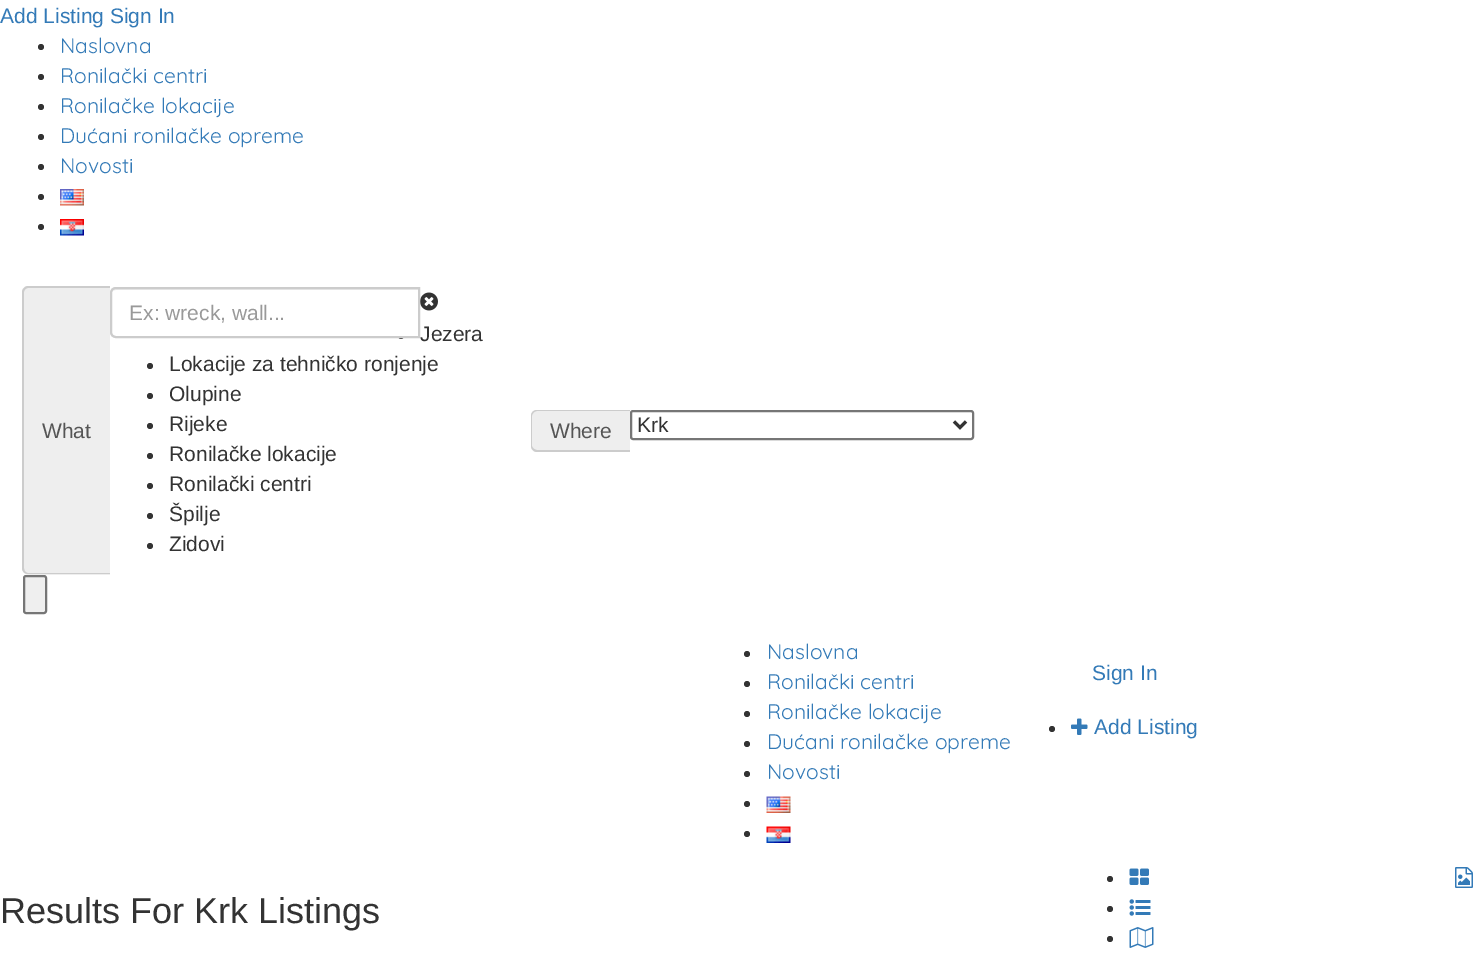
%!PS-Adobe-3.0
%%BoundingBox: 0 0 1473 955
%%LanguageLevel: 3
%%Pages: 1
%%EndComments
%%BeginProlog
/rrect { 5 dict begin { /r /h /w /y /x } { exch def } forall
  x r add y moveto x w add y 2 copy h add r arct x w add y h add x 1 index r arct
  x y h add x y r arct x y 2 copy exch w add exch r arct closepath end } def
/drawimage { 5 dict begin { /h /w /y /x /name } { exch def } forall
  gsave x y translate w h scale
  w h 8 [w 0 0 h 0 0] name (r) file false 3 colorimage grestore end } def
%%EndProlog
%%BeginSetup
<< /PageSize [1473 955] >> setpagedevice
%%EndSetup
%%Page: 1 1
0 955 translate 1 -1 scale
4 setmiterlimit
1 setgray
0 0 1473 955 rectfill
0.2 setgray
newpath 41 47 3 0 360 arc closepath fill
newpath 41 77 3 0 360 arc closepath fill
newpath 41 107 3 0 360 arc closepath fill
newpath 41 137 3 0 360 arc closepath fill
newpath 41 167 3 0 360 arc closepath fill
newpath 41 197 3 0 360 arc closepath fill
(images/1.raw) 60 189 24 17 drawimage
newpath 41 227 3 0 360 arc closepath fill
(images/2.raw) 60 219 24 17 drawimage
0.933 setgray
newpath 29 287 moveto 110 287 lineto 110 575 lineto 29 575 lineto 25.5 575 23 572.5 23 569 curveto 23 293 lineto 23 289.5 25.5 287 29 287 curveto closepath fill
0.8 setgray
newpath 28 286 moveto 110 286 lineto 110 574 lineto 28 574 lineto 25 574 22 572 22 568 curveto 22 292 lineto 22 289 25 286 28 286 curveto closepath 28 288 moveto 110 288 lineto 110 573 lineto 28 573 lineto 26 573 24 571 24 568 curveto 24 292 lineto 24 290 26 288 28 288 curveto closepath eofill
(images/3.raw) 420 292 18 19 drawimage
0.2 setgray
newpath 401 336 3 0 360 arc closepath fill
newpath 150 366 3 0 360 arc closepath fill
newpath 150 396 3 0 360 arc closepath fill
newpath 150 426 3 0 360 arc closepath fill
newpath 150 456 3 0 360 arc closepath fill
newpath 150 486 3 0 360 arc closepath fill
newpath 150 516 3 0 360 arc closepath fill
newpath 150 546 3 0 360 arc closepath fill
0.933 setgray
newpath 537 410 moveto 630 410 lineto 630 452 lineto 537 452 lineto 533.5 452 531 449.5 531 446 curveto 531 416 lineto 531 412.5 533.5 410 537 410 curveto closepath fill
0.8 setgray
newpath 537 410 moveto 630 410 lineto 630 452 lineto 537 452 lineto 534 452 531 449 531 446 curveto 531 416 lineto 531 412 534 410 537 410 curveto closepath 537 411 moveto 630 411 lineto 630 450 lineto 537 450 lineto 535 450 532 448 532 446 curveto 532 416 lineto 532 413 535 411 537 411 curveto closepath eofill
0.463 setgray
2 setlinewidth
631 411 342 28 2 rrect stroke
0.2 setgray
3 setlinewidth
newpath 954 421.5 moveto 960 427.5 lineto 966 421.5 lineto stroke
0.937 setgray
24 576 22 37 2 rrect gsave fill grestore
0.463 setgray
2 setlinewidth
stroke
0.2 setgray
newpath 747 654 3 0 360 arc closepath fill
newpath 747 684 3 0 360 arc closepath fill
newpath 747 714 3 0 360 arc closepath fill
newpath 747 744 3 0 360 arc closepath fill
newpath 747 774 3 0 360 arc closepath fill
newpath 747 804 3 0 360 arc closepath fill
(images/4.raw) 766 796 25 17 drawimage
newpath 747 834 3 0 360 arc closepath fill
(images/5.raw) 766 826 25 17 drawimage
newpath 1052 729 3 0 360 arc closepath fill
(images/6.raw) 1071 718 17 17 drawimage
(images/7.raw) 1455 867 18 21 drawimage
newpath 1110 879 3 0 360 arc closepath fill
(images/8.raw) 1129 868 20 17 drawimage
newpath 1110 909 3 0 360 arc closepath fill
(images/9.raw) 1129 899 22 17 drawimage
newpath 1110 939 3 0 360 arc closepath fill
(images/10.raw) 1129 927 25 21 drawimage
/LiberationSans-Regular [21 0 0 -21 0 0] selectfont
0.2 0.478 0.718 setrgbcolor
0 23 moveto (Add Listing Sign In) show
/Quicksand-Regular [21 0 0 -21 0 0] selectfont
60 53 moveto (Naslovna) show
60 83 moveto (Ronilački centri) show
60 113 moveto (Ronilačke lokacije) show
60 143 moveto (Dućani ronilačke opreme) show
60 173 moveto (Novosti) show
/LiberationSans-Regular [21 0 0 -21 0 0] selectfont
0.333 setgray
42 438 moveto (What) show
0.2 setgray
420 341 moveto (Jezera) show
1 setgray
newpath 116 287 moveto 420 287 lineto 420 338 lineto 116 338 lineto 112.5 338 110 335.5 110 332 curveto 110 293 lineto 110 289.5 112.5 287 116 287 curveto closepath fill
0.925 setgray
newpath 116 290 moveto 418 290 lineto 418 336 lineto 419 336 lineto 419 288 lineto 116 288 lineto 113 288 111 291 111 294 curveto 111 292 113 290 116 290 curveto closepath fill
0.8 setgray
newpath 116 288 moveto 419 288 lineto 419 337 lineto 116 337 lineto 113 337 111 335 111 332 curveto 111 293 lineto 111 290 113 288 116 288 curveto closepath stroke
0.6 setgray
129 320 moveto (Ex: wreck, wall...) show
0.2 setgray
169 371 moveto (Lokacije za tehničko ronjenje) show
169 401 moveto (Olupine) show
169 431 moveto (Rijeke) show
169 461 moveto (Ronilačke lokacije) show
169 491 moveto (Ronilački centri) show
169 521 moveto (Špilje) show
169 551 moveto (Zidovi) show
0.333 setgray
550 438 moveto (Where) show
0.2 setgray
637 432 moveto (Krk) show
/Quicksand-Regular [21 0 0 -21 0 0] selectfont
0.2 0.478 0.718 setrgbcolor
767 659 moveto (Naslovna) show
767 689 moveto (Ronilački centri) show
767 719 moveto (Ronilačke lokacije) show
767 749 moveto (Dućani ronilačke opreme) show
767 779 moveto (Novosti) show
/LiberationSans-Regular [21 0 0 -21 0 0] selectfont
1092 680 moveto (Sign In) show
1094 734 moveto (Add Listing) show
/LiberationSans-Regular [36 0 0 -36 0 0] selectfont
0.2 setgray
0 923 moveto (Results For Krk Listings) show
showpage
%%EOF
